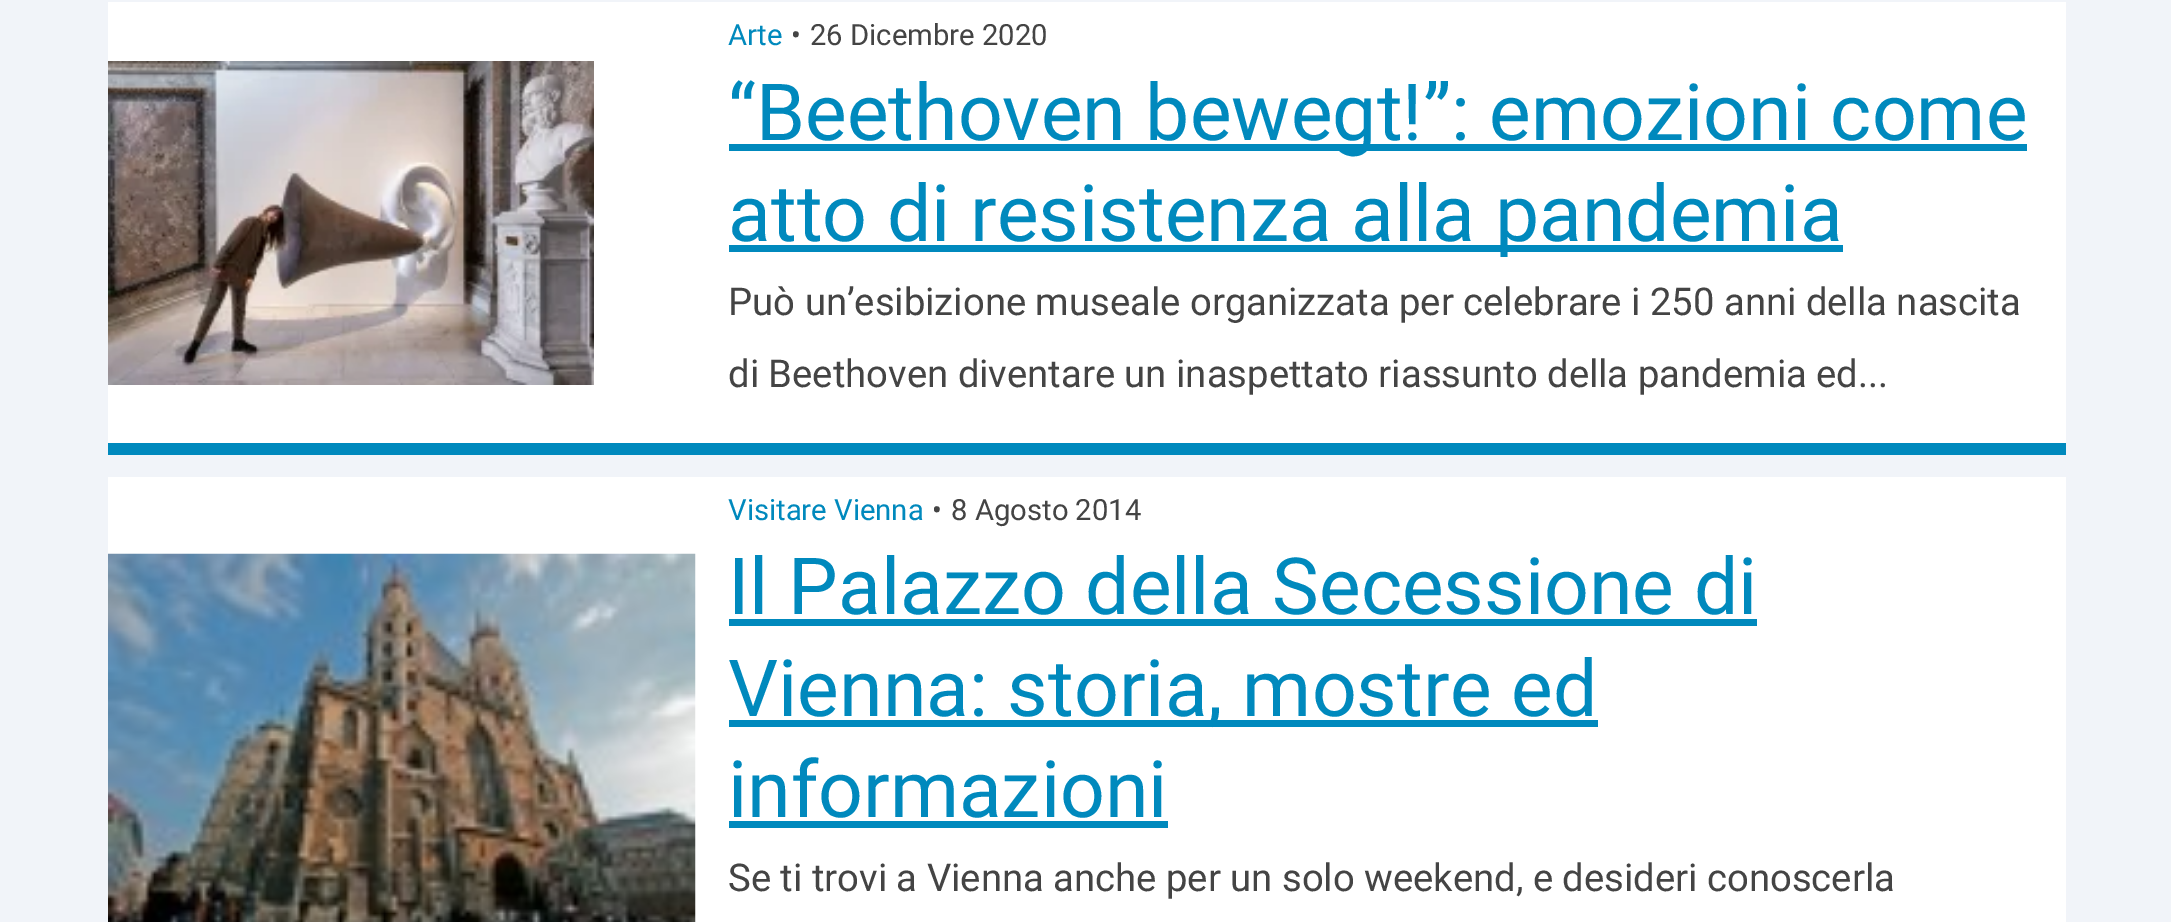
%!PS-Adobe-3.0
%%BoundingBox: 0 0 2171 922
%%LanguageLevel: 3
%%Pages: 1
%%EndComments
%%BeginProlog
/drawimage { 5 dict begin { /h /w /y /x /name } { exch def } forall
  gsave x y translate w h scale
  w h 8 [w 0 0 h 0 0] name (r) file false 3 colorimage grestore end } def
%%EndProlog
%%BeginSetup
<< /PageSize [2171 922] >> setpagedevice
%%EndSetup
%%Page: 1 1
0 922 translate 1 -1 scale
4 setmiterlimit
0.945 0.957 0.976 setrgbcolor
0 0 2171 922 rectfill
1 setgray
108 2 1958 441 rectfill
0 0.537 0.741 setrgbcolor
108 443 1958 12 rectfill
(images/1.raw) 108 61 486 324 drawimage
729 144 1298 7 rectfill
729 245 1114 7 rectfill
1 setgray
108 477 1958 445 rectfill
(images/2.raw) 108 553 588 369 drawimage
0 0.537 0.741 setrgbcolor
729 619 1028 7 rectfill
729 720 869 7 rectfill
729 821 439 7 rectfill
/Roboto-Regular [29.25 0 0 -29.25 0 0] selectfont
728 45 moveto (Arte) show
0.267 setgray
791 45 moveto (•) show
810 45 moveto (26 Dicembre 2020) show
/Roboto-Regular [78.75 0 0 -78.75 0 0] selectfont
0 0.537 0.741 setrgbcolor
728 140 moveto (“Beethoven bewegt!”: emozioni come) show
728 241 moveto (atto di resistenza alla pandemia) show
/Roboto-Regular [38.25 0 0 -38.25 0 0] selectfont
0.267 setgray
728 315 moveto (Può un’esibizione museale organizzata per celebrare i 250 anni della nascita) show
728 387 moveto (di Beethoven diventare un inaspettato riassunto della pandemia ed...) show
/Roboto-Regular [29.25 0 0 -29.25 0 0] selectfont
0 0.537 0.741 setrgbcolor
728 520 moveto (Visitare Vienna) show
0.267 setgray
932 520 moveto (•) show
951 520 moveto (8 Agosto 2014) show
/Roboto-Regular [78.75 0 0 -78.75 0 0] selectfont
0 0.537 0.741 setrgbcolor
728 614 moveto (Il Palazzo della Secessione di) show
728 716 moveto (Vienna: storia, mostre ed) show
728 817 moveto (informazioni) show
/Roboto-Regular [38.25 0 0 -38.25 0 0] selectfont
0.267 setgray
728 891 moveto (Se ti trovi a Vienna anche per un solo weekend, e desideri conoscerla) show
showpage
%%EOF
